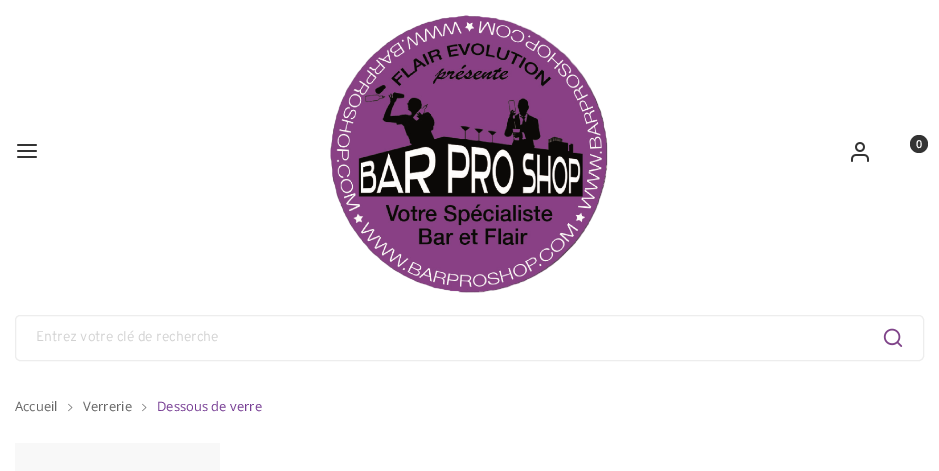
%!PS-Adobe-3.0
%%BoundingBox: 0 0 939 471
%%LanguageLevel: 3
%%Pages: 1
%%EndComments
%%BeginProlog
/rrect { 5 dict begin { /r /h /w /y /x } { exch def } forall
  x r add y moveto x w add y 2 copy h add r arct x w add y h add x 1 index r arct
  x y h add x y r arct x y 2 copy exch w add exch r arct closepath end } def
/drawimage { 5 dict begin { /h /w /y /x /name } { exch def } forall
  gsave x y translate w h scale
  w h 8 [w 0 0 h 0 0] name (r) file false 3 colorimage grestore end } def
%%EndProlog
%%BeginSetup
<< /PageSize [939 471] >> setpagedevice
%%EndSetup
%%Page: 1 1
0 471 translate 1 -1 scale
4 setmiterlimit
1 setgray
0 0 939 471 rectfill
(images/1.raw) 17 144 20 14 drawimage
(images/2.raw) 330 15 278 278 drawimage
(images/3.raw) 851 142 18 20 drawimage
0.2 setgray
newpath 919 144 9 0 360 arc closepath fill
0.929 setgray
15.5 315.5 908 45 4.5 rrect stroke
(images/4.raw) 883 328 20 19 drawimage
(images/5.raw) 68 403 5 9 drawimage
(images/5.raw) 142 403 5 9 drawimage
0.973 setgray
15 443 205 28 rectfill
/OpenSans-SemiBold [11 0 0 -11 0 0] selectfont
1 setgray
916 148 moveto (0) show
/Overpass-Light [14 0 0 -14 0 0] selectfont
0.82 setgray
36 341 moveto (Entrez votre clé de recherche) show
/OpenSans-Regular [13 0 0 -13 0 0] selectfont
0.4 setgray
15 411 moveto (Accueil) show
83 411 moveto (Verrerie) show
0.467 0.243 0.58 setrgbcolor
157 411 moveto (Dessous de verre) show
showpage
%%EOF
